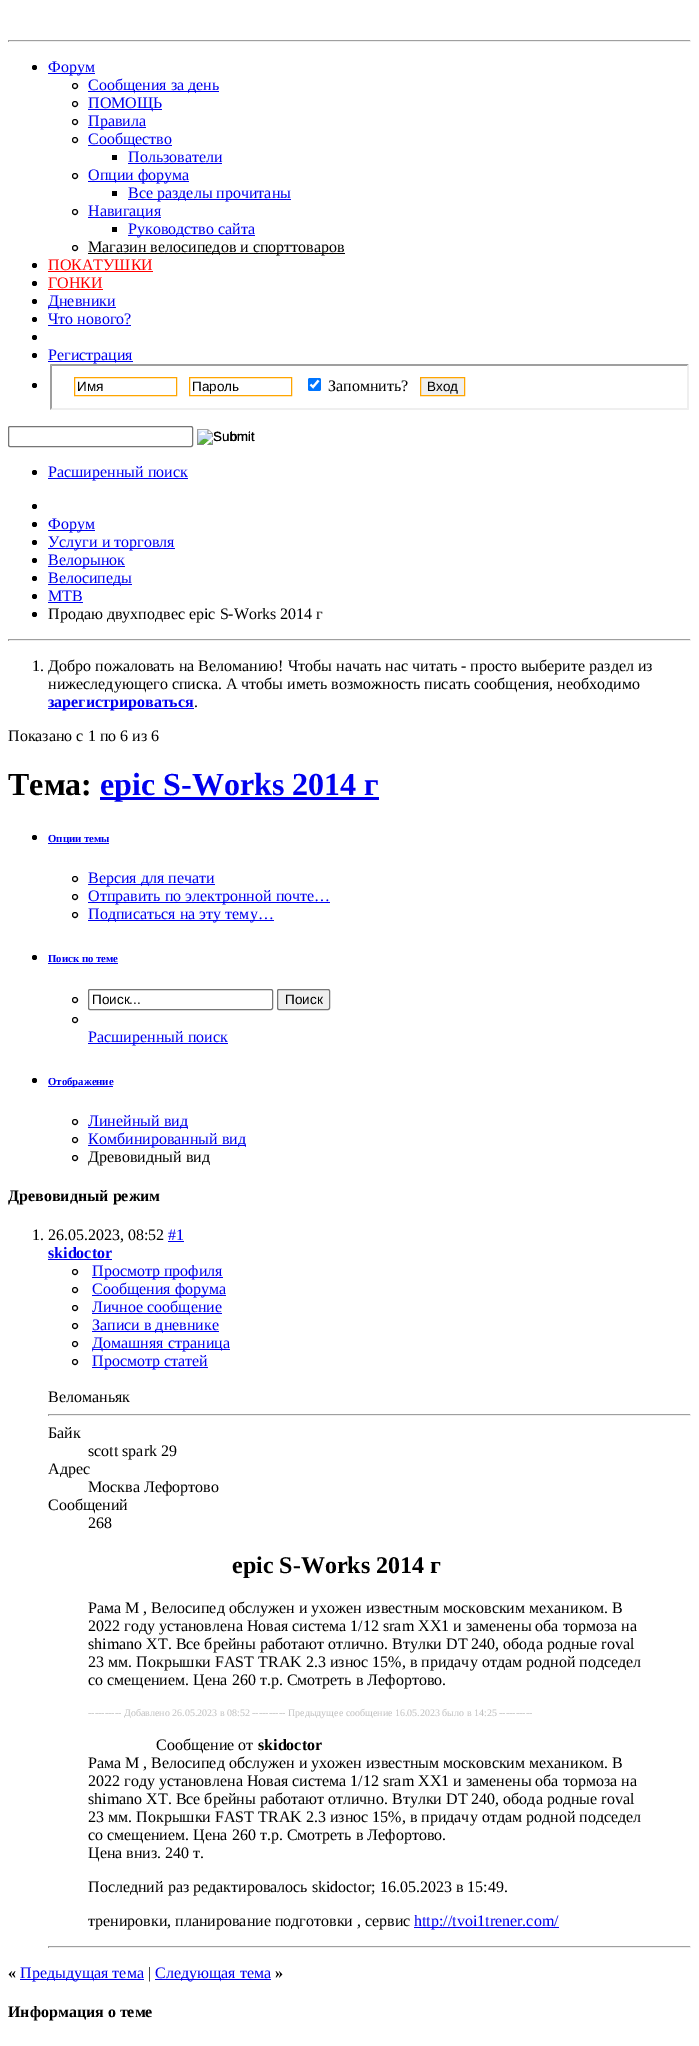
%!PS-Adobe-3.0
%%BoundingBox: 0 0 699 2046
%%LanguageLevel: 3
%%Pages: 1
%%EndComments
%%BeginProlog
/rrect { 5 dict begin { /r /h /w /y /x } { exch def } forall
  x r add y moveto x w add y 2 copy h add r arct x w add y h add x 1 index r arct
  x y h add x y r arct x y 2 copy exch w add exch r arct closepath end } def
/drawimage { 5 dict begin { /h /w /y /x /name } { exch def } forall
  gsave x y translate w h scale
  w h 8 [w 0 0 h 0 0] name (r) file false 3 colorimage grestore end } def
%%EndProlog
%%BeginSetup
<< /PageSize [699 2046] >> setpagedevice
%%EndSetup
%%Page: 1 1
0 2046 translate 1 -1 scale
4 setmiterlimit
1 setgray
0 0 699 2046 rectfill
0.624 setgray
8 40 683 1 rectfill
0.933 setgray
690 40 1 2 rectfill
8 41 683 1 rectfill
0.624 setgray
8 40 1 2 rectfill
0 setgray
newpath 34.5 67.5 2.5 0 360 arc closepath fill
0 0 0.933 setrgbcolor
48 73 47 1 rectfill
0 setgray
newpath 75 86 2.5 0 360 arc closepath stroke
0 0 0.933 setrgbcolor
88 91 131 1 rectfill
0 setgray
newpath 75 104 2.5 0 360 arc closepath stroke
0 0 0.933 setrgbcolor
88 109 74 1 rectfill
0 setgray
newpath 75 122 2.5 0 360 arc closepath stroke
0 0 0.933 setrgbcolor
88 127 58 1 rectfill
0 setgray
newpath 75 140 2.5 0 360 arc closepath stroke
0 0 0.933 setrgbcolor
88 145 84 1 rectfill
0 setgray
112 155 5 5 rectfill
0 0 0.933 setrgbcolor
128 163 94 1 rectfill
0 setgray
newpath 75 176 2.5 0 360 arc closepath stroke
0 0 0.933 setrgbcolor
88 181 101 1 rectfill
0 setgray
112 191 5 5 rectfill
0 0 0.933 setrgbcolor
128 199 163 1 rectfill
0 setgray
newpath 75 212 2.5 0 360 arc closepath stroke
0 0 0.933 setrgbcolor
88 217 73 1 rectfill
0 setgray
112 227 5 5 rectfill
0 0 0.933 setrgbcolor
128 235 127 1 rectfill
0 setgray
newpath 75 248 2.5 0 360 arc closepath stroke
88 253 257 1 rectfill
newpath 34.5 265.5 2.5 0 360 arc closepath fill
1 0 0 setrgbcolor
48 271 105 1 rectfill
0 setgray
newpath 34.5 283.5 2.5 0 360 arc closepath fill
1 0 0 setrgbcolor
48 289 55 1 rectfill
0 setgray
newpath 34.5 301.5 2.5 0 360 arc closepath fill
0 0 0.933 setrgbcolor
48 307 68 1 rectfill
0 setgray
newpath 34.5 319.5 2.5 0 360 arc closepath fill
0 0 0.933 setrgbcolor
48 325 83 1 rectfill
0 setgray
newpath 34.5 337.5 2.5 0 360 arc closepath fill
newpath 34.5 355.5 2.5 0 360 arc closepath fill
0 0 0.933 setrgbcolor
48 361 85 1 rectfill
0 setgray
newpath 34.5 385.5 2.5 0 360 arc closepath fill
0.624 setgray
newpath 50 364 moveto 689 364 lineto 687 366 lineto 52 366 lineto closepath fill
0.937 setgray
newpath 689 364 moveto 689 410 lineto 687 408 lineto 687 366 lineto closepath fill
newpath 689 410 moveto 50 410 lineto 52 408 lineto 687 408 lineto closepath fill
0.624 setgray
newpath 50 410 moveto 50 364 lineto 52 366 lineto 52 408 lineto closepath fill
1 0.647 0 setrgbcolor
74.5 377.5 102 18 rectstroke
189.5 377.5 102 18 rectstroke
0 0.459 1 setrgbcolor
308 378 13 13 2 rrect fill
1 setgray
2.1 setlinewidth
newpath 310.5 384.5 moveto 313 387 lineto 318.5 380.5 lineto stroke
0.937 setgray
newpath 420.5 377.5 moveto 464.5 377.5 lineto 464.5 395.5 lineto 420.5 395.5 lineto closepath gsave fill grestore
1 0.647 0 setrgbcolor
1 setlinewidth
stroke
0.463 setgray
8.5 426.5 184 20 1.5 rrect stroke
(images/1.raw) 197 429 57 16 drawimage
0 setgray
newpath 34.5 472.5 2.5 0 360 arc closepath fill
0 0 0.933 setrgbcolor
48 478 140 1 rectfill
0 setgray
newpath 34.5 506.5 2.5 0 360 arc closepath fill
newpath 34.5 524.5 2.5 0 360 arc closepath fill
0 0 0.933 setrgbcolor
48 530 47 1 rectfill
0 setgray
newpath 34.5 542.5 2.5 0 360 arc closepath fill
0 0 0.933 setrgbcolor
48 548 127 1 rectfill
0 setgray
newpath 34.5 560.5 2.5 0 360 arc closepath fill
0 0 0.933 setrgbcolor
48 566 77 1 rectfill
0 setgray
newpath 34.5 578.5 2.5 0 360 arc closepath fill
0 0 0.933 setrgbcolor
48 584 84 1 rectfill
0 setgray
newpath 34.5 596.5 2.5 0 360 arc closepath fill
0 0 0.933 setrgbcolor
48 602 35 1 rectfill
0 setgray
newpath 34.5 614.5 2.5 0 360 arc closepath fill
0.624 setgray
8 639 683 1 rectfill
0.933 setgray
690 639 1 2 rectfill
8 640 683 1 rectfill
0.624 setgray
8 639 1 2 rectfill
0 0 0.933 setrgbcolor
48 708 146 1 rectfill
100 797 279 3 rectfill
0 setgray
newpath 34.5 837.5 2.5 0 360 arc closepath fill
0 0 0.933 setrgbcolor
48 843 61 1 rectfill
0 setgray
newpath 75 879 2.5 0 360 arc closepath stroke
0 0 0.933 setrgbcolor
88 884 127 1 rectfill
0 setgray
newpath 75 897 2.5 0 360 arc closepath stroke
0 0 0.933 setrgbcolor
88 902 242 1 rectfill
0 setgray
newpath 75 915 2.5 0 360 arc closepath stroke
0 0 0.933 setrgbcolor
88 920 186 1 rectfill
0 setgray
newpath 34.5 957.5 2.5 0 360 arc closepath fill
0 0 0.933 setrgbcolor
48 963 70 1 rectfill
0 setgray
newpath 75 1000 2.5 0 360 arc closepath stroke
0.463 setgray
88.5 989.5 184 20 1.5 rrect stroke
0.937 setgray
277.5 989.5 52 20 1.5 rrect gsave fill grestore
0.463 setgray
stroke
0 setgray
newpath 75 1020 2.5 0 360 arc closepath stroke
0 0 0.933 setrgbcolor
88 1043 140 1 rectfill
0 setgray
newpath 34.5 1080.5 2.5 0 360 arc closepath fill
0 0 0.933 setrgbcolor
48 1086 65 1 rectfill
0 setgray
newpath 75 1122 2.5 0 360 arc closepath stroke
0 0 0.933 setrgbcolor
88 1127 100 1 rectfill
0 setgray
newpath 75 1140 2.5 0 360 arc closepath stroke
0 0 0.933 setrgbcolor
88 1145 158 1 rectfill
0 setgray
newpath 75 1158 2.5 0 360 arc closepath stroke
0 0 0.933 setrgbcolor
168 1241 16 1 rectfill
48 1259 64 1 rectfill
0 setgray
newpath 75 1272 2.5 0 360 arc closepath stroke
0 0 0.933 setrgbcolor
92 1277 131 1 rectfill
0 setgray
newpath 75 1290 2.5 0 360 arc closepath stroke
0 0 0.933 setrgbcolor
92 1295 134 1 rectfill
0 setgray
newpath 75 1308 2.5 0 360 arc closepath stroke
0 0 0.933 setrgbcolor
92 1313 130 1 rectfill
0 setgray
newpath 75 1326 2.5 0 360 arc closepath stroke
0 0 0.933 setrgbcolor
92 1331 127 1 rectfill
0 setgray
newpath 75 1344 2.5 0 360 arc closepath stroke
0 0 0.933 setrgbcolor
92 1349 138 1 rectfill
0 setgray
newpath 75 1362 2.5 0 360 arc closepath stroke
0 0 0.933 setrgbcolor
92 1367 116 1 rectfill
0.624 setgray
48 1414 643 1 rectfill
0.933 setgray
690 1414 1 2 rectfill
48 1415 643 1 rectfill
0.624 setgray
48 1414 1 2 rectfill
0 0 0.933 setrgbcolor
414 1927 145 1 rectfill
0.624 setgray
48 1946 643 1 rectfill
0.933 setgray
690 1946 1 2 rectfill
48 1947 643 1 rectfill
0.624 setgray
48 1946 1 2 rectfill
0 0 0.933 setrgbcolor
20 1979 124 1 rectfill
155 1979 116 1 rectfill
/LiberationSerif-Regular [16 0 0 -16 0 0] selectfont
48 72 moveto (Форум) show
88 90 moveto (Сообщения за день) show
88 108 moveto (ПОМОЩЬ) show
88 126 moveto (Правила) show
88 144 moveto (Сообщество) show
128 162 moveto (Пользователи) show
88 180 moveto (Опции форума) show
128 198 moveto (Все разделы прочитаны) show
88 216 moveto (Навигация) show
128 234 moveto (Руководство сайта) show
0 setgray
88 252 moveto (Магазин велосипедов и спорттоваров) show
1 0 0 setrgbcolor
48 270 moveto (ПОКАТУШКИ) show
48 288 moveto (ГОНКИ) show
0 0 0.933 setrgbcolor
48 306 moveto (Дневники) show
48 324 moveto (Что нового?) show
48 360 moveto (Регистрация) show
/LiberationSans-Regular [13.5 0 0 -13.5 0 0] selectfont
0 setgray
77 391 moveto (Имя) show
192 391 moveto (Пароль) show
/LiberationSerif-Regular [16 0 0 -16 0 0] selectfont
328 391 moveto (Запомнить?) show
/LiberationSans-Regular [13.5 0 0 -13.5 0 0] selectfont
427 391 moveto (Вход) show
213 441 moveto (Submit) show
/LiberationSerif-Regular [16 0 0 -16 0 0] selectfont
0 0 0.933 setrgbcolor
48 477 moveto (Расширенный поиск) show
48 529 moveto (Форум) show
48 547 moveto (Услуги и торговля) show
48 565 moveto (Велорынок) show
48 583 moveto (Велосипеды) show
48 601 moveto (MTB) show
0 setgray
48 619 moveto (Продаю двухподвес epic S-Works 2014 г) show
32 671 moveto (1. Добро пожаловать на Веломанию! Чтобы начать нас читать - просто выберите раздел из) show
48 689 moveto (нижеследующего списка. A чтобы иметь возможность писать сообщения, необходимо) show
/LiberationSerif-Bold [16 0 0 -16 0 0] selectfont
0 0 0.933 setrgbcolor
48 707 moveto (зарегистрироваться) show
/LiberationSerif-Regular [16 0 0 -16 0 0] selectfont
0 setgray
194 707 moveto (.) show
8 741 moveto (Показано с 1 по 6 из 6) show
/LiberationSerif-Bold [32 0 0 -32 0 0] selectfont
8 795 moveto (Тема:) show
0 0 0.933 setrgbcolor
100 795 moveto (epic S-Works 2014 г) show
/LiberationSerif-Bold [10.75 0 0 -10.75 0 0] selectfont
48 842 moveto (Опции темы) show
/LiberationSerif-Regular [16 0 0 -16 0 0] selectfont
88 883 moveto (Версия для печати) show
88 901 moveto (Отправить по электронной почте…) show
88 919 moveto (Подписаться на эту тему…) show
/LiberationSerif-Bold [10.75 0 0 -10.75 0 0] selectfont
48 962 moveto (Поиск по теме) show
/LiberationSans-Regular [13.5 0 0 -13.5 0 0] selectfont
0 setgray
92 1004 moveto (Поиск...) show
285 1004 moveto (Поиск) show
/LiberationSerif-Regular [16 0 0 -16 0 0] selectfont
0 0 0.933 setrgbcolor
88 1042 moveto (Расширенный поиск) show
/LiberationSerif-Bold [10.75 0 0 -10.75 0 0] selectfont
48 1085 moveto (Отображение) show
/LiberationSerif-Regular [16 0 0 -16 0 0] selectfont
88 1126 moveto (Линейный вид) show
88 1144 moveto (Комбинированный вид) show
0 setgray
88 1162 moveto (Древовидный вид) show
/LiberationSerif-Bold [16 0 0 -16 0 0] selectfont
8 1201 moveto (Древовидный режим) show
/LiberationSerif-Regular [16 0 0 -16 0 0] selectfont
32 1240 moveto (1. 26.05.2023, 08:52) show
0 0 0.933 setrgbcolor
168 1240 moveto (#1) show
/LiberationSerif-Bold [16 0 0 -16 0 0] selectfont
48 1258 moveto (skidoctor) show
/LiberationSerif-Regular [16 0 0 -16 0 0] selectfont
92 1276 moveto (Просмотр профиля) show
92 1294 moveto (Сообщения форума) show
92 1312 moveto (Личное сообщение) show
92 1330 moveto (Записи в дневнике) show
92 1348 moveto (Домашняя страница) show
92 1366 moveto (Просмотр статей) show
0 setgray
48 1402 moveto (Веломаньяк) show
48 1438 moveto (Байк) show
88 1456 moveto (scott spark 29) show
48 1474 moveto (Адрес) show
88 1492 moveto (Москва Лефортово) show
48 1510 moveto (Сообщений) show
88 1528 moveto (268) show
/LiberationSerif-Bold [24 0 0 -24 0 0] selectfont
232 1573 moveto (epic S-Works 2014 г) show
/LiberationSerif-Regular [16 0 0 -16 0 0] selectfont
88 1613 moveto (Рама М , Велосипед обслужен и ухожен известным московским механиком. В) show
88 1631 moveto (2022 году установлена Новая система 1/12 sram XX1 и заменены оба тормоза на) show
88 1649 moveto (shimano XT. Все брейны работают отлично. Втулки DT 240, обода родные roval) show
88 1667 moveto (23 мм. Покрышки FAST TRAK 2.3 износ 15%, в придачу отдам родной подседел) show
88 1685 moveto (со смещением. Цена 260 т.р. Смотреть в Лефортово.) show
/LiberationSerif-Regular [10 0 0 -10 0 0] selectfont
0.753 setgray
88 1716 moveto (---------- Добавлено 26.05.2023 в 08:52 ---------- Предыдущее сообщение 16.05.2023 было в 14:25 ----------) show
/LiberationSerif-Regular [16 0 0 -16 0 0] selectfont
0 setgray
156 1750 moveto (Сообщение от) show
/LiberationSerif-Bold [16 0 0 -16 0 0] selectfont
258 1750 moveto (skidoctor) show
/LiberationSerif-Regular [16 0 0 -16 0 0] selectfont
88 1768 moveto (Рама М , Велосипед обслужен и ухожен известным московским механиком. В) show
88 1786 moveto (2022 году установлена Новая система 1/12 sram XX1 и заменены оба тормоза на) show
88 1804 moveto (shimano XT. Все брейны работают отлично. Втулки DT 240, обода родные roval) show
88 1822 moveto (23 мм. Покрышки FAST TRAK 2.3 износ 15%, в придачу отдам родной подседел) show
88 1840 moveto (со смещением. Цена 260 т.р. Смотреть в Лефортово.) show
88 1858 moveto (Цена вниз. 240 т.) show
88 1892 moveto (Последний раз редактировалось skidoctor; 16.05.2023 в 15:49.) show
88 1926 moveto (тренировки, планирование подготовки , сервис) show
0 0 0.933 setrgbcolor
414 1926 moveto (http://tvoi1trener.com/) show
/LiberationSerif-Bold [16 0 0 -16 0 0] selectfont
0 setgray
8 1978 moveto («) show
/LiberationSerif-Regular [16 0 0 -16 0 0] selectfont
0 0 0.933 setrgbcolor
20 1978 moveto (Предыдущая тема) show
0 setgray
148 1978 moveto (|) show
0 0 0.933 setrgbcolor
155 1978 moveto (Следующая тема) show
/LiberationSerif-Bold [16 0 0 -16 0 0] selectfont
0 setgray
275 1978 moveto (») show
8 2017 moveto (Информация о теме) show
showpage
%%EOF
